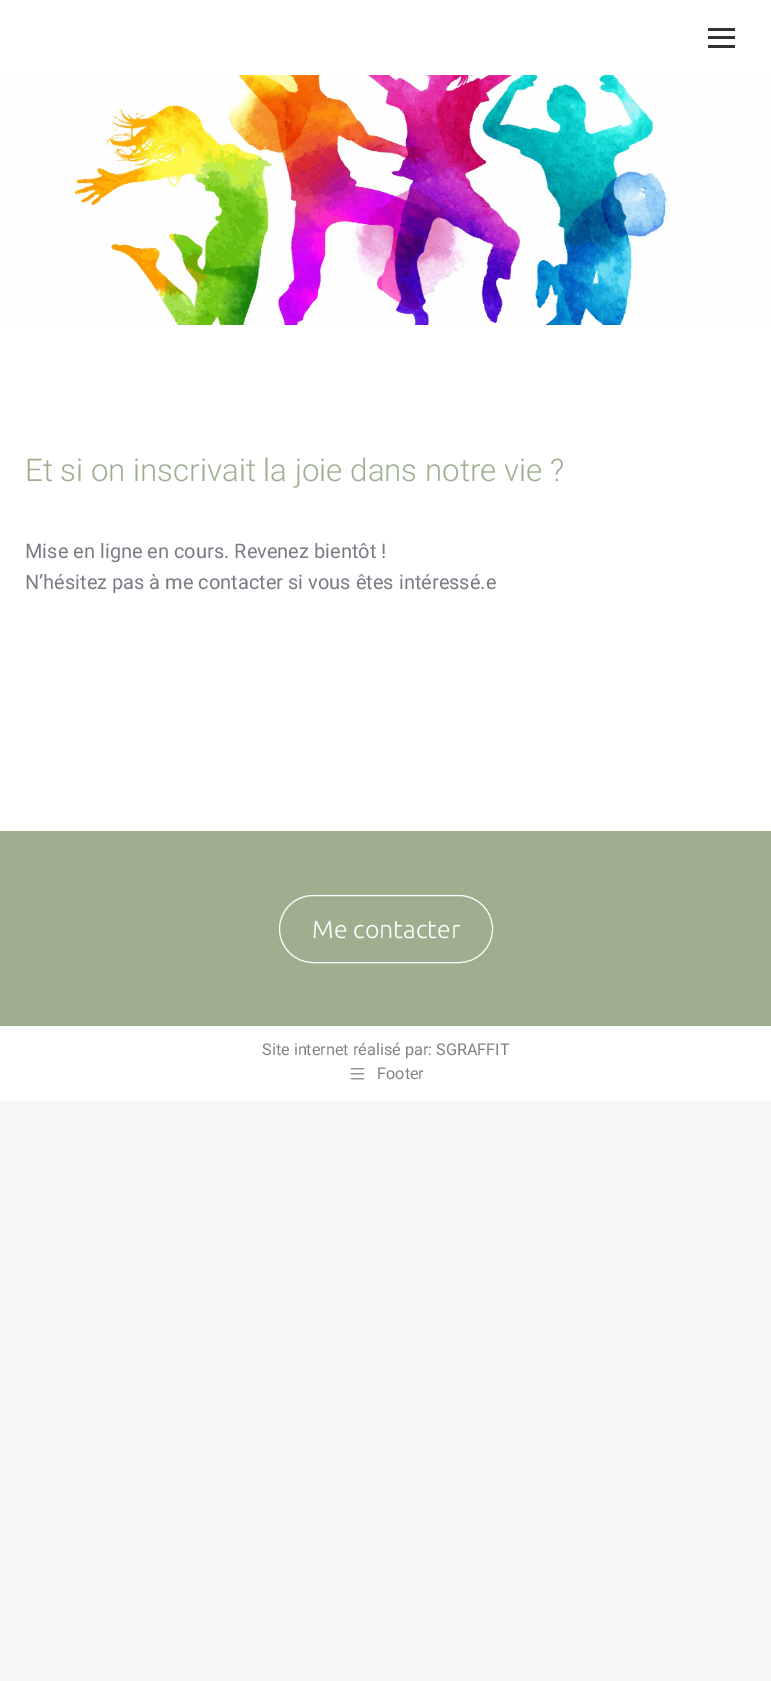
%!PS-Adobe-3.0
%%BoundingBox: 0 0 771 1681
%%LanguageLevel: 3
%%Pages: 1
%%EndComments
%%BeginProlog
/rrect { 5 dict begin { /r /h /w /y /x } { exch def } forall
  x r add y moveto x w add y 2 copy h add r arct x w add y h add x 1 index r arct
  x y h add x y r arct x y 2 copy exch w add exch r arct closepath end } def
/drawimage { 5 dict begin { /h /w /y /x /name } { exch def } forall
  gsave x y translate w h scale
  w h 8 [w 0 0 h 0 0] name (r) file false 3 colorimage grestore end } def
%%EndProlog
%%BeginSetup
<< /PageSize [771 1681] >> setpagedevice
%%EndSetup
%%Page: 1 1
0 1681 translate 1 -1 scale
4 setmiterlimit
0.969 setgray
0 0 771 1681 rectfill
1 setgray
0 0 771 831 rectfill
0.2 setgray
708 28 27 3 rectfill
708 36 27 3 rectfill
708 45 27 3 rectfill
(images/1.raw) 0 75 771 250 drawimage
0.62 0.686 0.561 setrgbcolor
0 831 771 195 rectfill
1 setgray
279.5 895.5 213 67 33.5 rrect stroke
0 1026 771 75 rectfill
(images/2.raw) 350 1068 15 12 drawimage
/Roboto-Light [31.25 0 0 -31.25 0 0] selectfont
0.62 0.686 0.561 setrgbcolor
25 481 moveto (Et si on inscrivait la joie dans notre vie ?) show
/Roboto-Regular [20 0 0 -20 0 0] selectfont
0.471 0.49 0.522 setrgbcolor
25 558 moveto (Mise en ligne en cours. Revenez bientôt !) show
25 589 moveto (N’hésitez pas à me contacter si vous êtes intéressé.e) show
/Ubuntu-Light [25 0 0 -25 0 0] selectfont
1 setgray
312 938 moveto (Me contacter) show
/Roboto-Regular [16.25 0 0 -16.25 0 0] selectfont
0.51 setgray
262 1055 moveto (Site internet réalisé par: SGRAFFIT) show
377 1079 moveto (Footer) show
showpage
%%EOF
